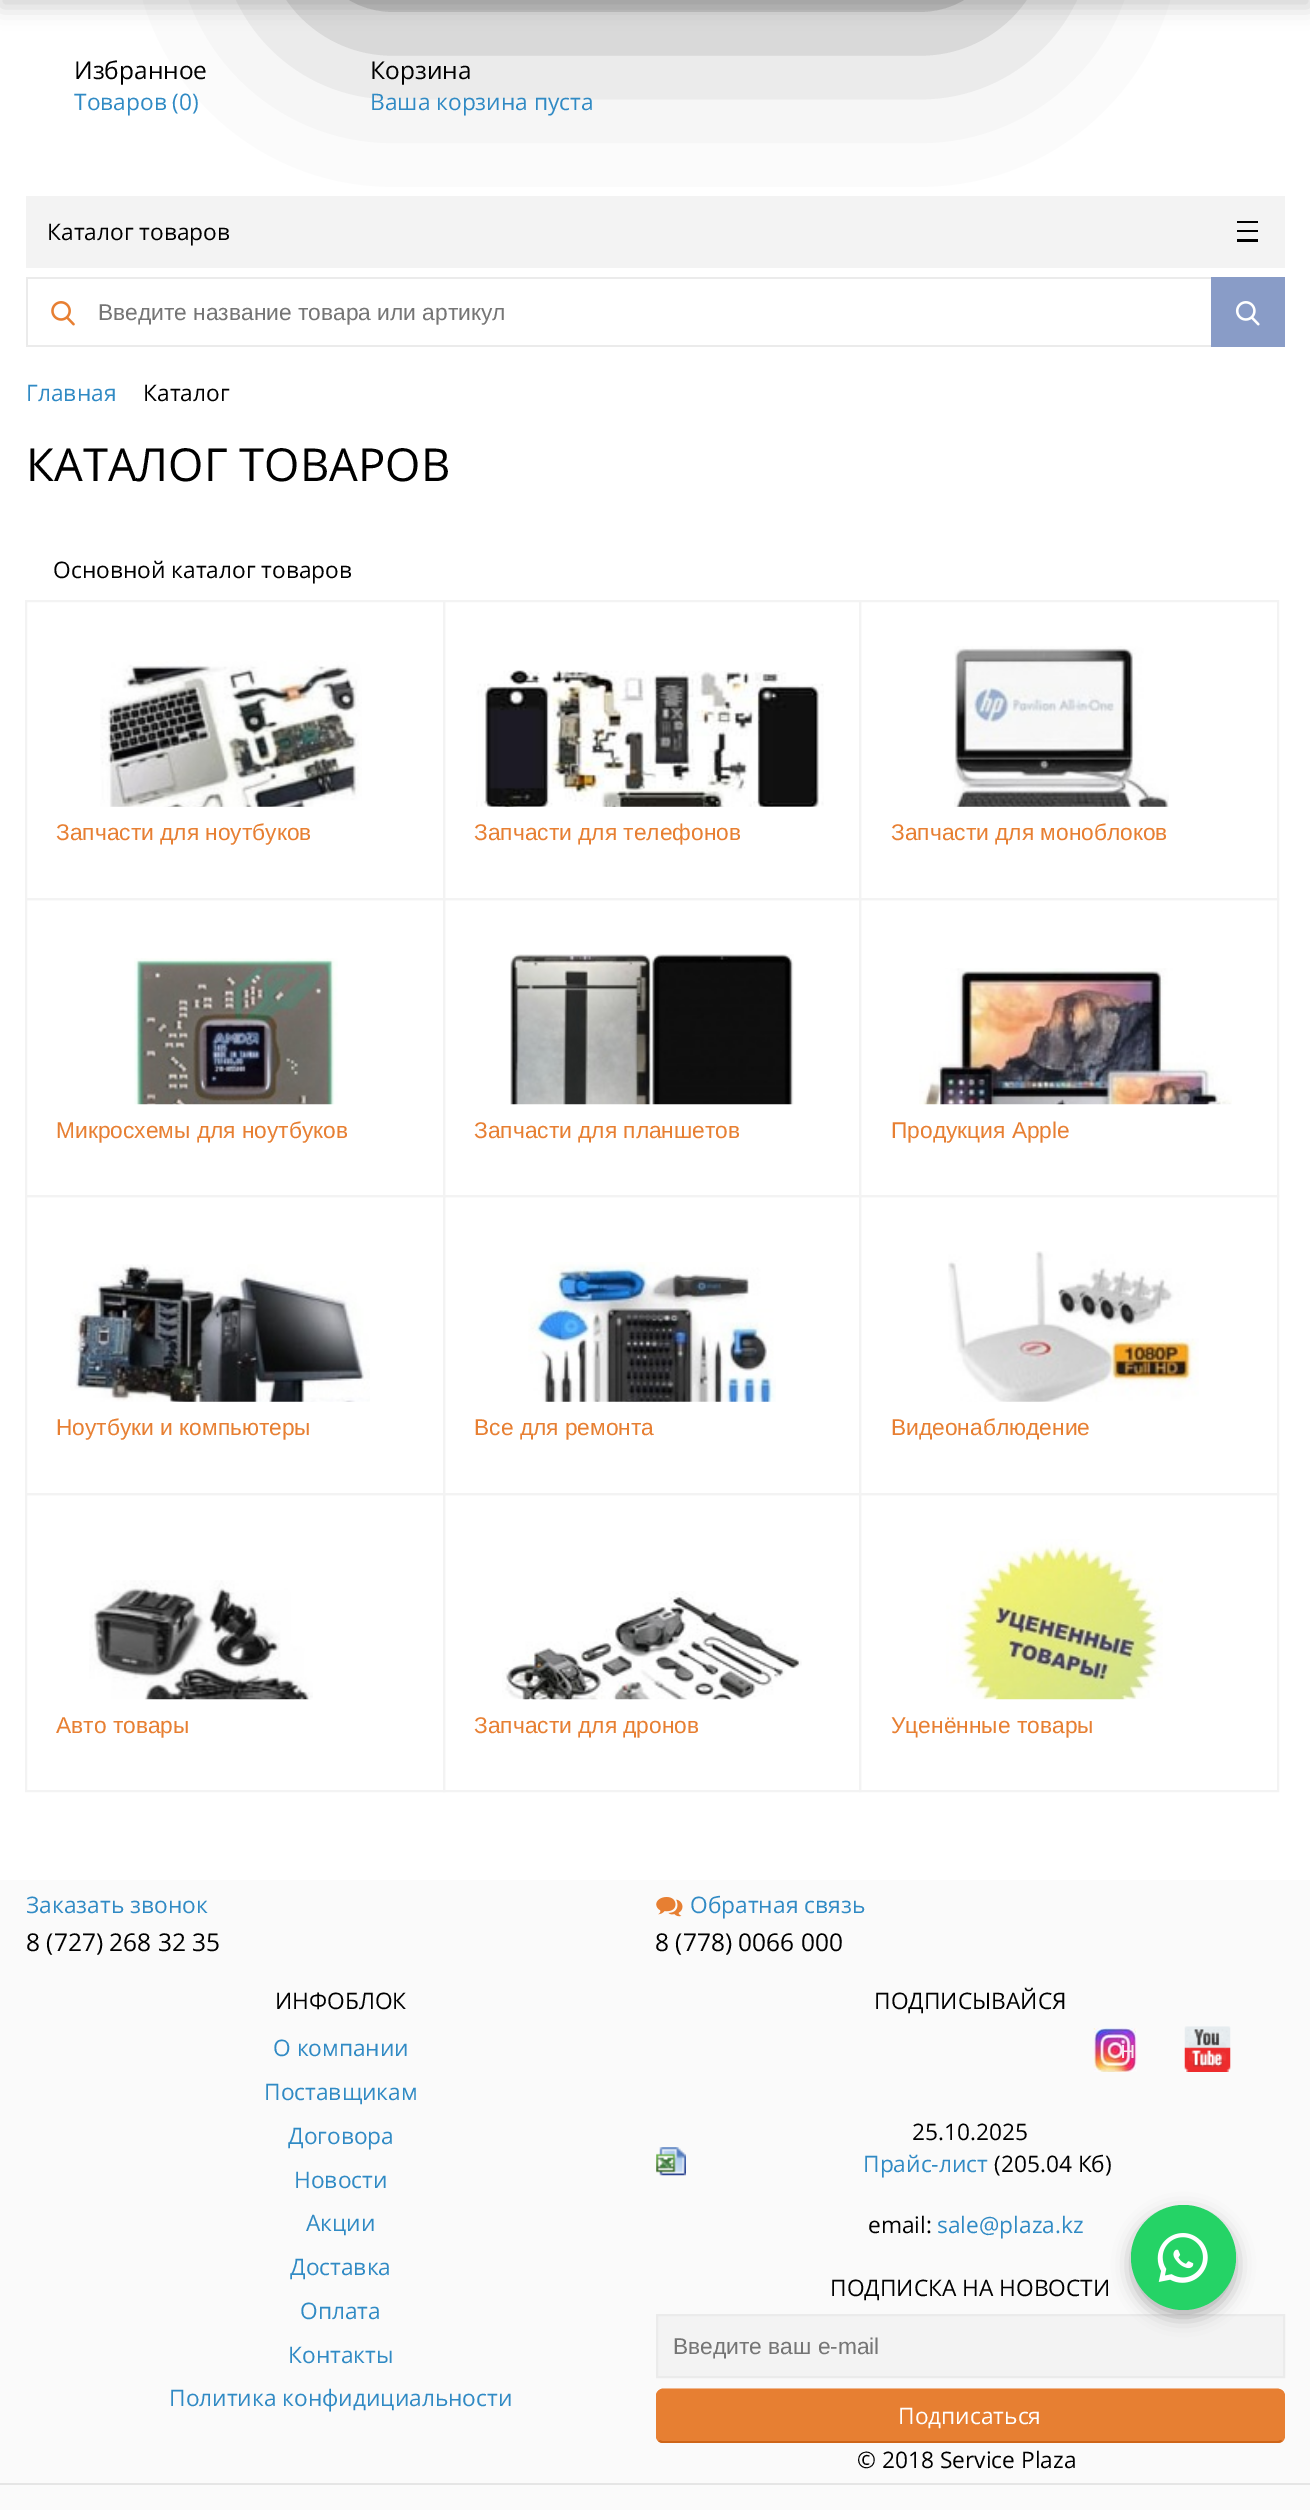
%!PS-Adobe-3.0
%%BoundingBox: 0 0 1310 2510
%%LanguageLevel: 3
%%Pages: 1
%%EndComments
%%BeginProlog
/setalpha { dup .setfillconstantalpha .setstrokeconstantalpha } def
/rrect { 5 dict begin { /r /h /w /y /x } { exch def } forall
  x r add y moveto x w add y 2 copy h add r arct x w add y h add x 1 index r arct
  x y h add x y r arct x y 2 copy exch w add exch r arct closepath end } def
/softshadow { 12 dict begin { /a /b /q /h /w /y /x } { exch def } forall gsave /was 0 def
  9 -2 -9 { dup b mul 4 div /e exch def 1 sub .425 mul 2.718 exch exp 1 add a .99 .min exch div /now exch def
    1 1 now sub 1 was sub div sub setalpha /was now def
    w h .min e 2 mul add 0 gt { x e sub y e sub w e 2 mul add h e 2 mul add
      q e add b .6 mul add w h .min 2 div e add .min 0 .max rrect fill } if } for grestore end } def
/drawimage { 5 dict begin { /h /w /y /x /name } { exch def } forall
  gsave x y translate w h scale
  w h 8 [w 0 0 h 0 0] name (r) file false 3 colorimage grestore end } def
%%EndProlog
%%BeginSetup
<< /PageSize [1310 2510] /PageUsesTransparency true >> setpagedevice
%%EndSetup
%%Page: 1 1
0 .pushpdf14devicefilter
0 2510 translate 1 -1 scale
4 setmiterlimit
1 setgray
0 0 1310 2510 rectfill
0.953 setgray
26 196 1259 72 rectfill
0 setgray
1237 221 21 2 rectfill
1237 230 21 2 rectfill
1237 239 21 3 rectfill
329 -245 655 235 11 87.5 0.5 softshadow
0 -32 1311 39 0 10.5 0.18 softshadow
0.922 setgray
26 277 1185 2 rectfill
26 345 1185 2 rectfill
26 277 2 70 rectfill
(images/1.raw) 51 301 24 25 drawimage
0.537 0.612 0.78 setrgbcolor
1211 277 74 70 rectfill
(images/2.raw) 1235 301 25 25 drawimage
0.953 setgray
2 setlinewidth
26 601 418 298 rectstroke
(images/3.raw) 100 660 262 147 drawimage
444 601 416 298 rectstroke
(images/4.raw) 476 670 348 137 drawimage
860 601 418 298 rectstroke
(images/5.raw) 954 646 215 161 drawimage
26 899 418 297 rectstroke
(images/6.raw) 134 958 204 147 drawimage
444 899 416 297 rectstroke
(images/7.raw) 510 954 284 151 drawimage
860 899 418 297 rectstroke
(images/8.raw) 919 968 313 137 drawimage
26 1196 418 298 rectstroke
(images/9.raw) 70 1264 300 138 drawimage
444 1196 416 298 rectstroke
(images/10.raw) 528 1262 248 140 drawimage
860 1196 418 298 rectstroke
(images/11.raw) 948 1251 251 151 drawimage
26 1494 418 297 rectstroke
(images/12.raw) 89 1580 224 120 drawimage
444 1494 416 297 rectstroke
(images/13.raw) 502 1591 300 109 drawimage
860 1494 418 297 rectstroke
(images/14.raw) 946 1539 217 161 drawimage
0.98 setgray
0 1880 1310 630 rectfill
(images/15.raw) 656 1897 27 20 drawimage
(images/16.raw) 1093 2028 44 44 drawimage
(images/17.raw) 1184 2026 47 46 drawimage
(images/18.raw) 656 2147 30 29 drawimage
0.953 setgray
newpath 657 2315 moveto 1284 2315 lineto 1284 2377 lineto 657 2377 lineto closepath gsave fill grestore
0.922 setgray
stroke
0.906 0.498 0.196 setrgbcolor
656 2389 629 54 7 rrect fill
0.808 0.396 0.094 setrgbcolor
1.8 setlinewidth
newpath 1282 2440.5 moveto 1280.5 2441.5 1279 2442 1277.5 2442 curveto 663 2442 lineto 661.5 2442 660 2441.5 659 2440.5 curveto stroke
0.906 0.498 0.196 setrgbcolor
newpath 659 2440.5 moveto 658 2439 657 2437.5 657 2436 curveto 657 2396 lineto 657 2394 658 2392.5 659 2391.5 curveto 660 2390.5 661.5 2389.5 663 2389.5 curveto 1277.5 2389.5 lineto 1279 2389.5 1280.5 2390.5 1282 2391.5 curveto 1283 2392.5 1283.5 2394 1283.5 2396 curveto 1283.5 2436 lineto 1283.5 2437.5 1283 2439 1282 2440.5 curveto stroke
0.898 setgray
0 2483 1310 2 rectfill
0 setgray
1131 2212 105 105 52.5 9 0.3 softshadow
0.145 0.827 0.4 setrgbcolor
newpath 1183.5 2257.5 52.5 0 360 arc closepath fill
(images/19.raw) 1157 2233 51 50 drawimage
/OpenSans-Regular [24.5 0 0 -24.5 0 0] selectfont
0 setgray
74 79 moveto (Избранное) show
/OpenSans-Regular [22.75 0 0 -22.75 0 0] selectfont
0.188 0.541 0.769 setrgbcolor
74 110 moveto (Товаров \(0\)) show
/OpenSans-Regular [24.5 0 0 -24.5 0 0] selectfont
0 setgray
370 79 moveto (Корзина) show
/OpenSans-Regular [22.75 0 0 -22.75 0 0] selectfont
0.188 0.541 0.769 setrgbcolor
370 110 moveto (Ваша корзина пуста) show
0 setgray
47 240 moveto (Каталог товаров) show
/LiberationSans-Regular [22.75 0 0 -22.75 0 0] selectfont
0.459 setgray
98 320 moveto (Введите название товара или артикул) show
/OpenSans-Regular [22.75 0 0 -22.75 0 0] selectfont
0.188 0.541 0.769 setrgbcolor
26 401 moveto (Главная) show
0 setgray
143 401 moveto (Каталог) show
/OpenSans-Regular [45.5 0 0 -45.5 0 0] selectfont
26 481 moveto (КАТАЛОГ ТОВАРОВ) show
/OpenSans-Regular [22.75 0 0 -22.75 0 0] selectfont
53 578 moveto (Основной каталог товаров) show
/LiberationSans-Regular [22.75 0 0 -22.75 0 0] selectfont
0.906 0.498 0.196 setrgbcolor
56 840 moveto (Запчасти для ноутбуков) show
474 840 moveto (Запчасти для телефонов) show
891 840 moveto (Запчасти для моноблоков) show
56 1138 moveto (Микросхемы для ноутбуков) show
474 1138 moveto (Запчасти для планшетов) show
891 1138 moveto (Продукция Apple) show
56 1435 moveto (Ноутбуки и компьютеры) show
474 1435 moveto (Все для ремонта) show
891 1435 moveto (Видеонаблюдение) show
56 1733 moveto (Авто товары) show
474 1733 moveto (Запчасти для дронов) show
891 1733 moveto (Уценённые товары) show
/OpenSans-Regular [22.75 0 0 -22.75 0 0] selectfont
0.188 0.541 0.769 setrgbcolor
26 1913 moveto (Заказать звонок) show
/OpenSans-Regular [24.5 0 0 -24.5 0 0] selectfont
0 setgray
26 1951 moveto (8 \(727\) 268 32 35) show
/OpenSans-Regular [22.75 0 0 -22.75 0 0] selectfont
0.188 0.541 0.769 setrgbcolor
690 1913 moveto (Обратная связь) show
/OpenSans-Regular [24.5 0 0 -24.5 0 0] selectfont
0 setgray
655 1951 moveto (8 \(778\) 0066 000) show
/OpenSans-Regular [22.75 0 0 -22.75 0 0] selectfont
275 2009 moveto (ИНФОБЛОК) show
0.188 0.541 0.769 setrgbcolor
273 2056 moveto (О компании) show
264 2100 moveto (Поставщикам) show
288 2144 moveto (Договора) show
294 2188 moveto (Новости) show
306 2231 moveto (Акции) show
290 2275 moveto (Доставка) show
300 2319 moveto (Оплата) show
288 2363 moveto (Контакты) show
169 2406 moveto (Политика конфидициальности) show
0 setgray
874 2009 moveto (ПОДПИСЫВАЙСЯ) show
912 2140 moveto (25.10.2025) show
0.188 0.541 0.769 setrgbcolor
863 2172 moveto (Прайс-лист) show
0 setgray
994 2172 moveto (\(205.04 Кб\)) show
868 2233 moveto (email:) show
0.188 0.541 0.769 setrgbcolor
937 2233 moveto (sale@plaza.kz) show
0 setgray
830 2296 moveto (ПОДПИСКА НА НОВОСТИ) show
/LiberationSans-Regular [22.75 0 0 -22.75 0 0] selectfont
0.459 setgray
673 2354 moveto (Введите ваш e-mail) show
/OpenSans-Regular [22.75 0 0 -22.75 0 0] selectfont
1 setgray
898 2424 moveto (Подписаться) show
0 setgray
857 2468 moveto (© 2018 Service Plaza) show
/OpenSans-Regular [24.5 0 0 -24.5 0 0] selectfont
0.969 0.918 0.937 setrgbcolor
1120 2058 moveto (н) show
.poppdf14devicefilter showpage
%%EOF
